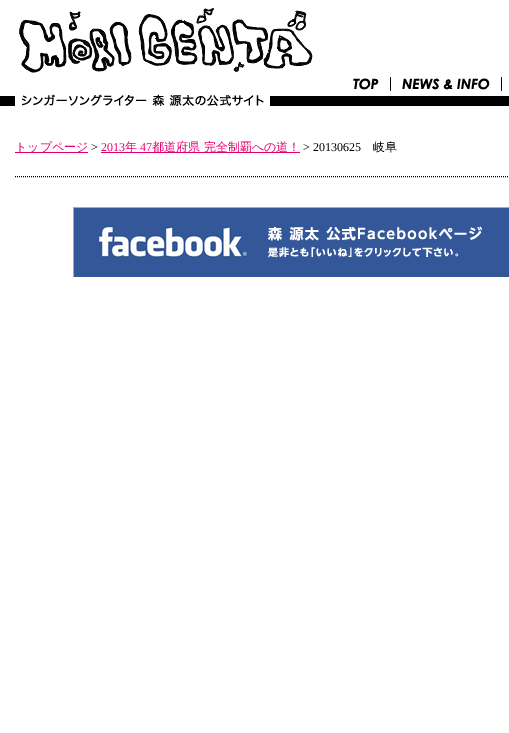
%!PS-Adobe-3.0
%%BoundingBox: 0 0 509 733
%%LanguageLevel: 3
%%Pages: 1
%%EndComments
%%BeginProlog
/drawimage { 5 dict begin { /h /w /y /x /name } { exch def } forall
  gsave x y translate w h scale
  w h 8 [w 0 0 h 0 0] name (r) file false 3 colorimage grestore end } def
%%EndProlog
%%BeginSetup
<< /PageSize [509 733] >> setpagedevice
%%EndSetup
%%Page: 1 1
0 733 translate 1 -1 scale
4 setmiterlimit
1 setgray
0 0 509 733 rectfill
(images/1.raw) 19 8 294 65 drawimage
(images/2.raw) 353 77 38 14 drawimage
(images/3.raw) 402 77 100 14 drawimage
0 setgray
0 96 509 10 rectfill
(images/4.raw) 15 94 255 12 drawimage
0.894 0 0.451 setrgbcolor
15 152 73 1 rectfill
101 152 199 1 rectfill
0 setgray
[1 1] 0 setdash
newpath 15 176.5 moveto 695 176.5 lineto stroke
(images/5.raw) 73 207 436 70 drawimage
/WenQuanYiZenHei-Medium [12 0 0 -12 0 0] selectfont
0.894 0 0.451 setrgbcolor
15 151 moveto (トップページ) show
/LiberationSerif-Regular [12 0 0 -12 0 0] selectfont
0 setgray
91 151 moveto (>) show
0.894 0 0.451 setrgbcolor
101 151 moveto (2013) show
/WenQuanYiZenHei-Medium [12 0 0 -12 0 0] selectfont
125 151 moveto (年) show
/LiberationSerif-Regular [12 0 0 -12 0 0] selectfont
140 151 moveto (47) show
/WenQuanYiZenHei-Medium [12 0 0 -12 0 0] selectfont
152 151 moveto (都道府県 完全制覇への道！) show
/LiberationSerif-Regular [12 0 0 -12 0 0] selectfont
0 setgray
303 151 moveto (> 20130625) show
/WenQuanYiZenHei-Medium [12 0 0 -12 0 0] selectfont
373 151 moveto (岐阜) show
showpage
%%EOF
